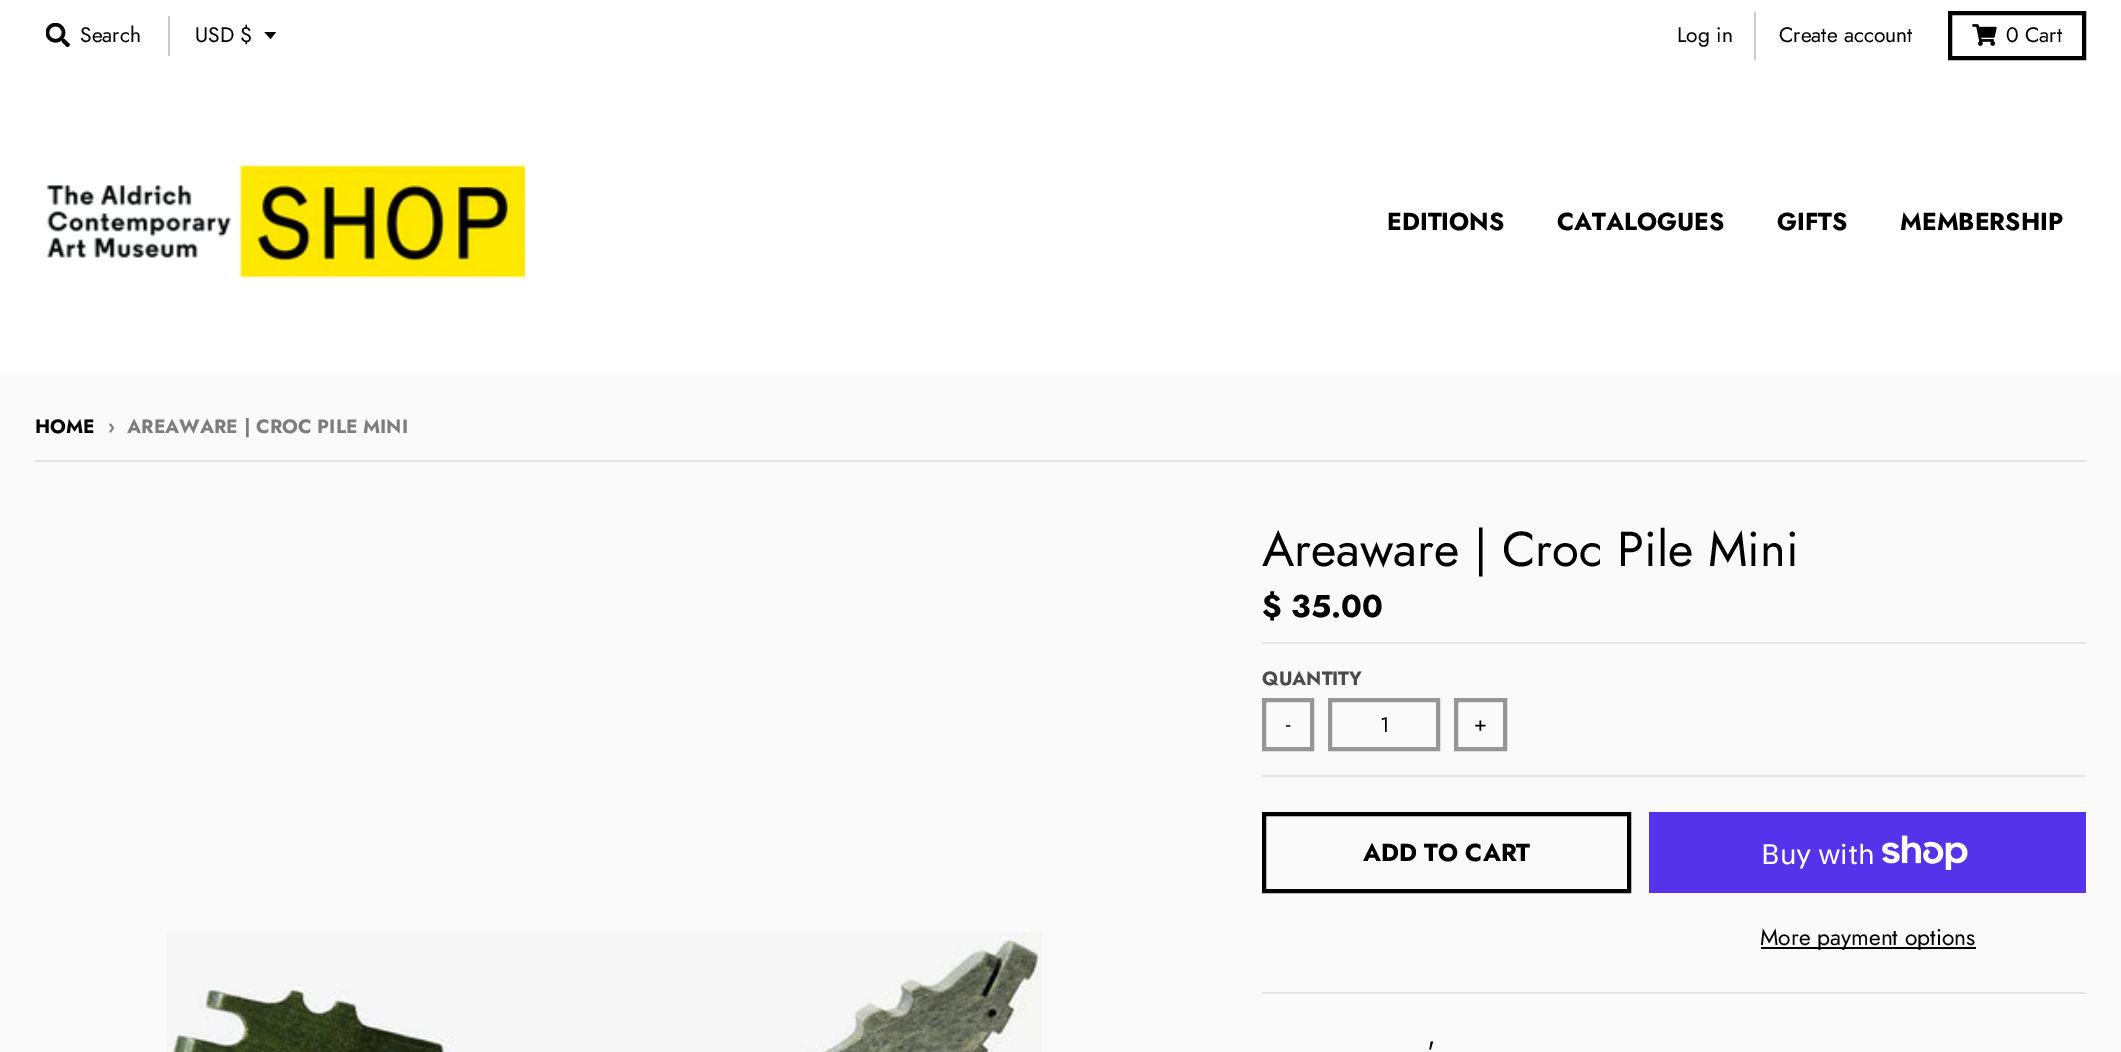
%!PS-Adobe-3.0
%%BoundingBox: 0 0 2121 1052
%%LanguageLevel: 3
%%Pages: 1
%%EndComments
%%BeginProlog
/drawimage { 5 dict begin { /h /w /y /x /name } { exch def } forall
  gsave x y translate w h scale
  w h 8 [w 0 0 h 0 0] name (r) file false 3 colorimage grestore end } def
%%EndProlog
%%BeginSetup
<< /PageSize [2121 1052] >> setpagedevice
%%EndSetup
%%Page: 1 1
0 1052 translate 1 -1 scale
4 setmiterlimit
0.98 setgray
0 0 2121 1052 rectfill
1 setgray
0 0 2121 373 rectfill
(images/1.raw) 46 23 24 24 drawimage
0.8 setgray
168 16 2 40 rectfill
gsave
264 32 14 8 rectclip
0 setgray
newpath 264 31.5 moveto 270.5 39 lineto 276.5 31.5 lineto closepath fill
grestore
1754 12 2 48 rectfill
0 setgray
4 setlinewidth
1950 13 134 45 rectstroke
(images/2.raw) 1972 24 25 22 drawimage
(images/3.raw) 46 164 479 115 drawimage
0.882 setgray
35 460 2051 2 rectfill
(images/4.raw) 167 932 875 120 drawimage
0.898 setgray
1262 992 824 2 rectfill
1262 642 824 2 rectfill
1262 775 824 2 rectfill
0.588 setgray
1264 700 48 49 rectstroke
1330 700 108 49 rectstroke
1456 700 49 49 rectstroke
0 setgray
1264 814 365 77 rectstroke
0.329 0.2 0.922 setrgbcolor
1649 812 437 81 rectfill
(images/5.raw) 1882 835 86 35 drawimage
0 setgray
1761 947 215 2 rectfill
/Jost-Regular [21 0 0 -21 0 0] selectfont
80 42 moveto (Search) show
195 42 moveto (USD $) show
1677 42 moveto (Log in) show
1779 42 moveto (Create account) show
2006 42 moveto (0 Cart) show
/Jost-Bold [24.5 0 0 -24.5 0 0] selectfont
1387 230 moveto (EDITIONS) show
1557 230 moveto (CATALOGUES) show
1777 230 moveto (GIFTS) show
1900 230 moveto (MEMBERSHIP) show
/Jost-Bold [19.25 0 0 -19.25 0 0] selectfont
35 433 moveto (HOME) show
0.49 setgray
108 433 moveto (›) show
127 433 moveto (AREAWARE | CROC PILE MINI) show
/Jost-Regular [49 0 0 -49 0 0] selectfont
0 setgray
1262 566 moveto (Areaware | Croc Pile Mini) show
/Jost-Bold [31.5 0 0 -31.5 0 0] selectfont
1262 617 moveto ($ 35.00) show
/Jost-Bold [19.25 0 0 -19.25 0 0] selectfont
0.294 setgray
1262 685 moveto (QUANTITY) show
/Jost-Regular [21 0 0 -21 0 0] selectfont
0 setgray
1286 731 moveto (-) show
1380 732 moveto (1) show
1474 731 moveto (+) show
/Jost-Bold [24.5 0 0 -24.5 0 0] selectfont
1363 861 moveto (ADD TO CART) show
/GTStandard-Regular [28 0 0 -28 0 0] selectfont
1 setgray
1761 864 moveto (Buy with) show
/Jost-Regular [22.75 0 0 -22.75 0 0] selectfont
0 setgray
1760 945 moveto (More payment options) show
/Jost-Regular [28 0 0 -28 0 0] selectfont
1427 1061 moveto (') show
showpage
%%EOF
